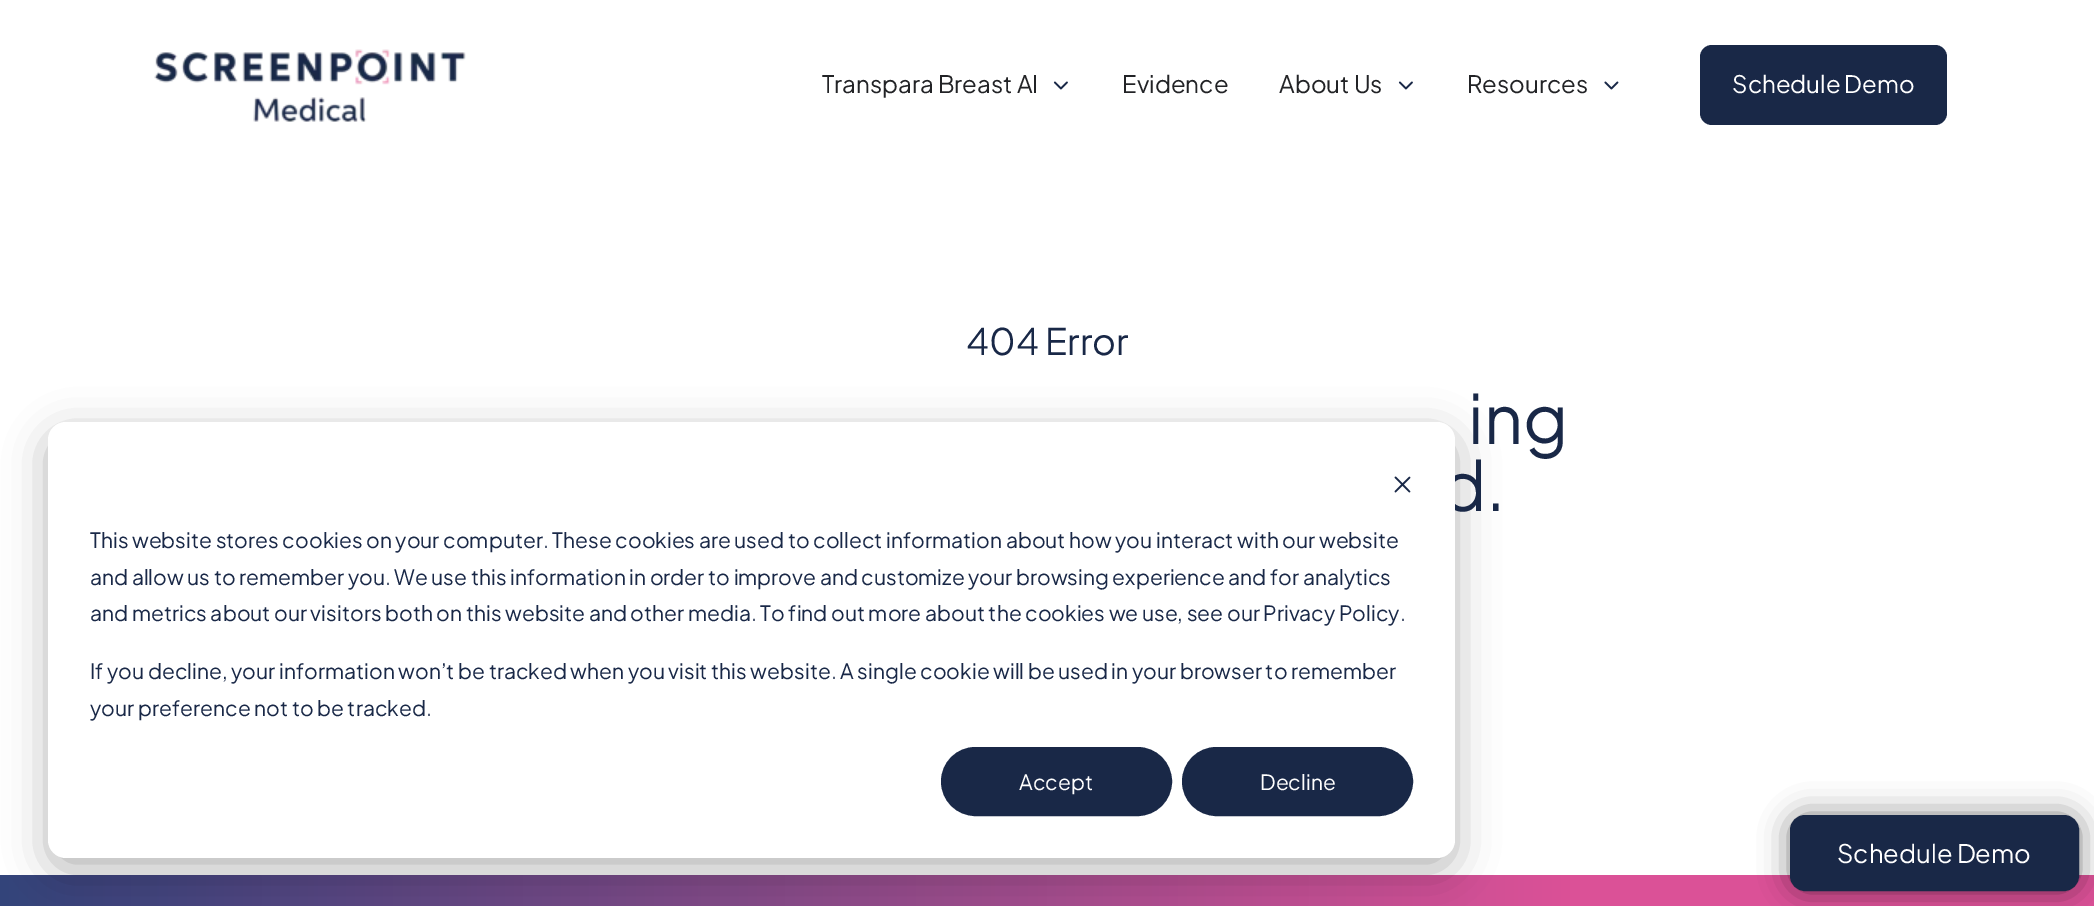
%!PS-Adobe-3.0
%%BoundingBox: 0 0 2094 906
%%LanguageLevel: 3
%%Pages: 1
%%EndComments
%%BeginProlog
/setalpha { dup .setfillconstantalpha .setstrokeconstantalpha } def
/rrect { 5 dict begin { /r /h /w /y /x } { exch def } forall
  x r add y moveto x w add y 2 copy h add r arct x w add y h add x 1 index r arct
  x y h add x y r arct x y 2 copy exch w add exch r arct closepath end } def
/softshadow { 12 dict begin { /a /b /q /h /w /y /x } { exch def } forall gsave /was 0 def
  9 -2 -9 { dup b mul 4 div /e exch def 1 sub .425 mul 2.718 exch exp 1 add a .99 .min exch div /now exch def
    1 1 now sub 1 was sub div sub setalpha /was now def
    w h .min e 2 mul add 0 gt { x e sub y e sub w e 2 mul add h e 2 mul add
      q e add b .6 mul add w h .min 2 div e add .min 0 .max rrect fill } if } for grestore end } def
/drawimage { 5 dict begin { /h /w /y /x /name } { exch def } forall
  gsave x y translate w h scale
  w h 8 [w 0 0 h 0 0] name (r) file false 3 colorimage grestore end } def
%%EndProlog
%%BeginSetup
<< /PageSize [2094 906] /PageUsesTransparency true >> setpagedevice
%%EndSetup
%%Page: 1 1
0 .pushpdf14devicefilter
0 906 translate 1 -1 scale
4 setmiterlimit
1 setgray
0 0 2094 906 rectfill
gsave newpath 0 875 moveto 2094 875 lineto 2094 906 lineto 0 906 lineto closepath clip newpath
<< /ShadingType 2 /ColorSpace /DeviceRGB /Coords [0 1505 2094 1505] /Extend [true true] /Function << /FunctionType 3 /Domain [0 1] /Functions [<< /FunctionType 2 /Domain [0 1] /C0 [0.2 0.267 0.478] /C1 [0.859 0.318 0.592] /N 1 >> << /FunctionType 2 /Domain [0 1] /C0 [0.859 0.318 0.592] /C1 [0.859 0.318 0.592] /N 1 >>] /Bounds [0.75] /Encode [0 1 0 1] >> >> shfill grestore
0 setgray
48 434 1407 436 18 21 0.28 softshadow
(images/2.raw) 154 49 312 73 drawimage
(images/3.raw) 1053 81 15 9 drawimage
(images/3.raw) 1398 81 15 9 drawimage
(images/4.raw) 1604 81 15 9 drawimage
0.098 0.157 0.278 setrgbcolor
1700 45 247 80 12 rrect fill
0 setgray
1790 815 289 76 15 15 0.5 softshadow
0.098 0.157 0.278 setrgbcolor
1791.5 816.5 286 73 13.5 rrect gsave fill grestore
3 setlinewidth
stroke
/PlusJakartaSans-Regular [24 0 0 -24 0 0] selectfont
0.133 0.137 0.149 setrgbcolor
822 93 moveto (Transpara Breast AI) show
1122 93 moveto (Evidence) show
1279 93 moveto (About Us) show
1467 93 moveto (Resources) show
1 setgray
1732 93 moveto (Schedule Demo) show
/PlusJakartaSans-Regular [36.5 0 0 -36.5 0 0] selectfont
0.098 0.157 0.278 setrgbcolor
966 355 moveto (404 Error) show
/PlusJakartaSans-Regular [68 0 0 -68 0 0] selectfont
1468 444 moveto (ing) show
1441 511 moveto (d.) show
1 setgray
48 422 1407 436 18 rrect fill
(images/1.raw) 1394 476 17 17 drawimage
0.098 0.157 0.278 setrgbcolor
1183 748 229 67 33.5 rrect gsave fill grestore
2 setlinewidth
stroke
/PlusJakartaSans-Regular [21 0 0 -21 0 0] selectfont
1 setgray
1260 790 moveto (Decline) show
0.098 0.157 0.278 setrgbcolor
942 748 229 67 33.5 rrect gsave fill grestore
stroke
1 setgray
1019 790 moveto (Accept) show
0.098 0.157 0.278 setrgbcolor
90 716 moveto (your preference not to be tracked.) show
90 679 moveto (If you decline, your information won’t be tracked when you visit this website. A single cookie will be used in your browser to remember) show
90 621 moveto (and metrics about our visitors both on this website and other media. To find out more about the cookies we use, see our Privacy Policy.) show
90 585 moveto (and allow us to remember you. We use this information in order to improve and customize your browsing experience and for analytics) show
90 548 moveto (This website stores cookies on your computer. These cookies are used to collect information about how you interact with our website) show
/PlusJakartaSans-Regular [25.5 0 0 -25.5 0 0] selectfont
1 setgray
1837 863 moveto (Schedule Demo) show
.poppdf14devicefilter showpage
%%EOF
